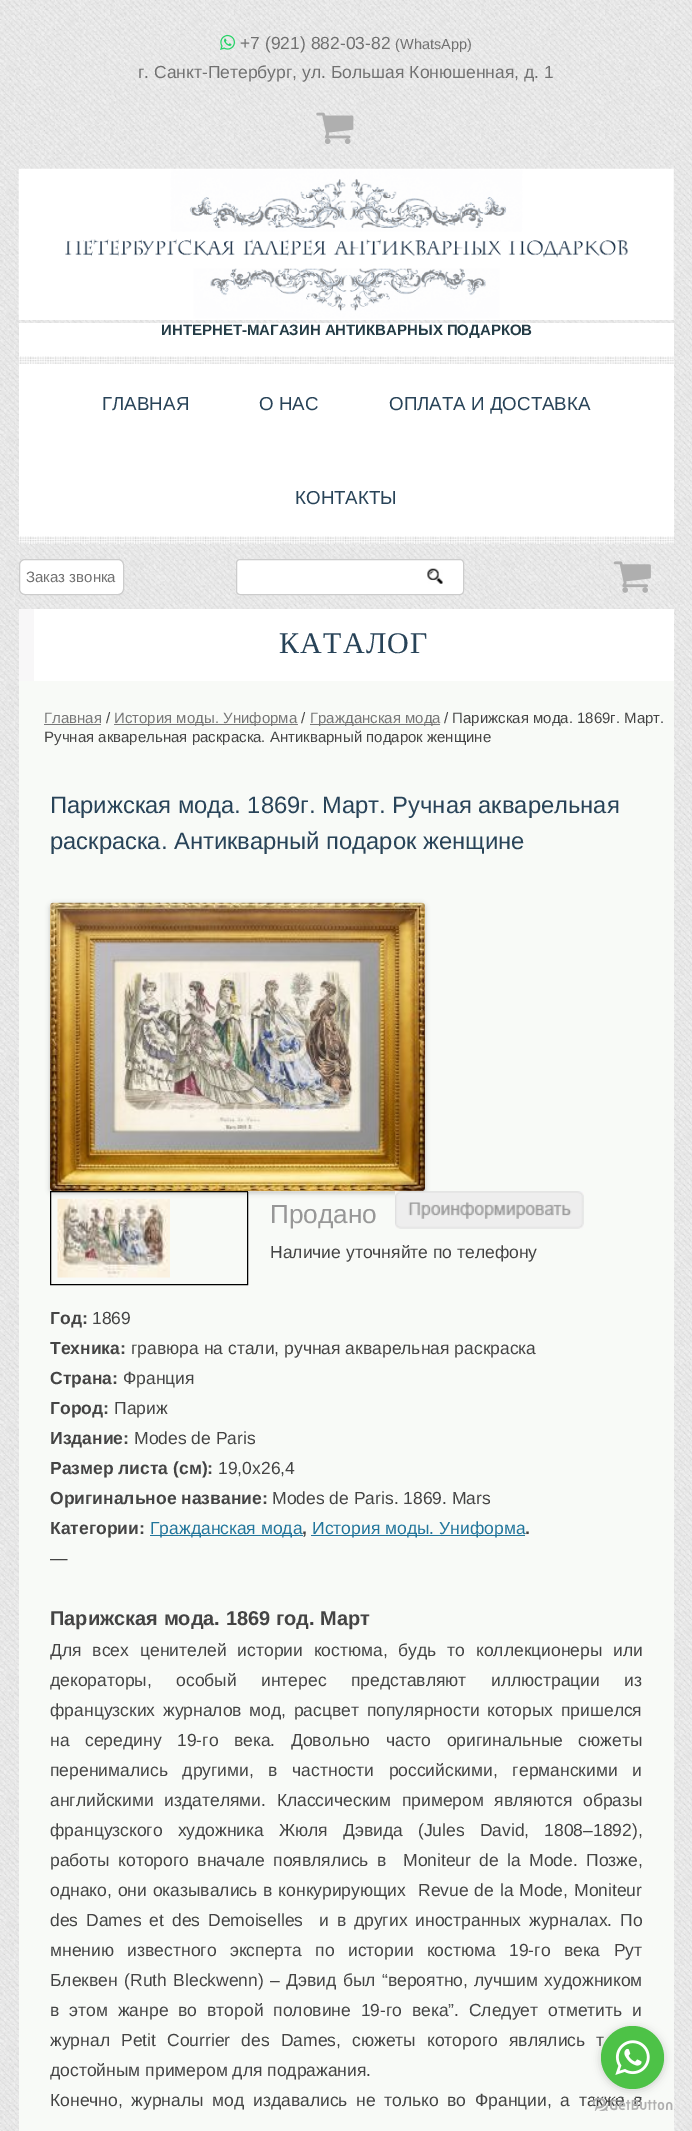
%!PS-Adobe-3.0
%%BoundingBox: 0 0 692 2131
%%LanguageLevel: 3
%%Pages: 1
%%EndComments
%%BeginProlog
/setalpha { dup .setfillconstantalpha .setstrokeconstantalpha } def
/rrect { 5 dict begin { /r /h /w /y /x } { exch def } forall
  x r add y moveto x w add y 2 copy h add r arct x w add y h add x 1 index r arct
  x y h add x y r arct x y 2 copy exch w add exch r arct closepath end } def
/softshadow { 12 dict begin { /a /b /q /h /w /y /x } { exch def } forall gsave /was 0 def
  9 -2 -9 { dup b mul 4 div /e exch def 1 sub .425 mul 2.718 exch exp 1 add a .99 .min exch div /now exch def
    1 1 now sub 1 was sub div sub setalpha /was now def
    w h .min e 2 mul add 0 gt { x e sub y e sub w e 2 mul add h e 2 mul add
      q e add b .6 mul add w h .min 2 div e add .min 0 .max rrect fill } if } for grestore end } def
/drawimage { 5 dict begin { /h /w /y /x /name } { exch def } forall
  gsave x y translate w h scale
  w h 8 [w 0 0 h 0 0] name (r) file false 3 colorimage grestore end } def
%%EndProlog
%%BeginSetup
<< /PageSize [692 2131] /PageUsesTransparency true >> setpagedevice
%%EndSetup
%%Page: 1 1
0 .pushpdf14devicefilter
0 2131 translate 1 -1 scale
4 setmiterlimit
1 setgray
0 0 692 2131 rectfill
(images/1.raw) 0 0 692 2131 drawimage
(images/2.raw) 220 34 15 16 drawimage
(images/3.raw) 316 112 38 32 drawimage
(images/4.raw) 18 168 656 152 drawimage
19 323 655 221 rectfill
(images/5.raw) 18 356 656 8 drawimage
(images/6.raw) 18 536 656 8 drawimage
19.5 559.5 104 35 5.5 rrect gsave fill grestore
0.8 setgray
stroke
1 setgray
236.5 559.5 227 35 3.5 rrect gsave fill grestore
0.8 setgray
stroke
(images/7.raw) 427 568 16 16 drawimage
(images/8.raw) 613 561 38 32 drawimage
1 setgray
34 609 640 72 rectfill
0.973 0.969 0.973 setrgbcolor
19 609 15 72 rectfill
0.973 0.98 0.969 setrgbcolor
19 681 655 1450 rectfill
0.467 setgray
44 724 57 1 rectfill
114 724 184 1 rectfill
310 724 130 1 rectfill
0 setgray
50.5 1191.5 197 93 rectstroke
(images/10.raw) 57 1198 113 80 drawimage
50 904 375 289 4 2.5 0.2 softshadow
(images/9.raw) 50 902 375 290 drawimage
(images/11.raw) 395 1191 189 38 drawimage
0.129 0.459 0.608 setrgbcolor
150 1535 153 1 rectfill
311 1535 214 1 rectfill
/LiberationSans-Regular [17.5 0 0 -17.5 0 0] selectfont
0.443 setgray
240 49 moveto (+7 \(921\) 882-03-82) show
/LiberationSans-Regular [14.5 0 0 -14.5 0 0] selectfont
395 49 moveto (\(WhatsApp\)) show
/LiberationSans-Regular [17.5 0 0 -17.5 0 0] selectfont
138 78 moveto (г. Санкт-Петербург, ул. Большая Конюшенная, д. 1) show
/LiberationSans-Bold [15 0 0 -15 0 0] selectfont
0.141 0.235 0.275 setrgbcolor
161 335 moveto (ИНТЕРНЕТ-МАГАЗИН АНТИКВАРНЫХ ПОДАРКОВ) show
/LiberationSans-Regular [18.75 0 0 -18.75 0 0] selectfont
0.157 0.263 0.345 setrgbcolor
102 410 moveto (ГЛАВНАЯ) show
259 410 moveto (О НАС) show
389 410 moveto (ОПЛАТА И ДОСТАВКА) show
295 504 moveto (КОНТАКТЫ) show
/LiberationSans-Regular [15 0 0 -15 0 0] selectfont
0.443 setgray
26 582 moveto (Заказ звонка) show
/LiberationSerif-Regular [30 0 0 -30 0 0] selectfont
0.157 0.263 0.345 setrgbcolor
279 653 moveto 1.25 0 (КАТАЛОГ) ashow
/LiberationSans-Regular [15 0 0 -15 0 0] selectfont
0.467 setgray
44 723 moveto (Главная) show
0.267 setgray
106 723 moveto (/) show
0.467 setgray
114 723 moveto (История моды. Униформа) show
0.267 setgray
301 723 moveto (/) show
0.467 setgray
310 723 moveto (Гражданская мода) show
0.267 setgray
444 723 moveto (/ Парижская мода. 1869г. Март.) show
44 742 moveto (Ручная акварельная раскраска. Антикварный подарок женщине) show
/LiberationSans-Regular [23.75 0 0 -23.75 0 0] selectfont
0.157 0.263 0.345 setrgbcolor
50 813 moveto (Парижская мода. 1869г. Март. Ручная акварельная) show
50 849 moveto (раскраска. Антикварный подарок женщине) show
/LiberationSans-Regular [26.25 0 0 -26.25 0 0] selectfont
0.592 setgray
270 1223 moveto (Продано) show
/LiberationSans-Regular [17.5 0 0 -17.5 0 0] selectfont
0.267 setgray
270 1258 moveto (Наличие уточняйте по телефону) show
/LiberationSans-Bold [17.5 0 0 -17.5 0 0] selectfont
50 1324 moveto (Год:) show
/LiberationSans-Regular [17.5 0 0 -17.5 0 0] selectfont
92 1324 moveto (1869) show
/LiberationSans-Bold [17.5 0 0 -17.5 0 0] selectfont
50 1354 moveto (Техника:) show
/LiberationSans-Regular [17.5 0 0 -17.5 0 0] selectfont
131 1354 moveto (гравюра на стали, ручная акварельная раскраска) show
/LiberationSans-Bold [17.5 0 0 -17.5 0 0] selectfont
50 1384 moveto (Страна:) show
/LiberationSans-Regular [17.5 0 0 -17.5 0 0] selectfont
123 1384 moveto (Франция) show
/LiberationSans-Bold [17.5 0 0 -17.5 0 0] selectfont
50 1414 moveto (Город:) show
/LiberationSans-Regular [17.5 0 0 -17.5 0 0] selectfont
114 1414 moveto (Париж) show
/LiberationSans-Bold [17.5 0 0 -17.5 0 0] selectfont
50 1444 moveto (Издание:) show
/LiberationSans-Regular [17.5 0 0 -17.5 0 0] selectfont
134 1444 moveto (Modes de Paris) show
/LiberationSans-Bold [17.5 0 0 -17.5 0 0] selectfont
50 1474 moveto (Размер листа \(см\):) show
/LiberationSans-Regular [17.5 0 0 -17.5 0 0] selectfont
218 1474 moveto (19,0x26,4) show
/LiberationSans-Bold [17.5 0 0 -17.5 0 0] selectfont
50 1504 moveto (Оригинальное название:) show
/LiberationSans-Regular [17.5 0 0 -17.5 0 0] selectfont
272 1504 moveto (Modes de Paris. 1869. Mars) show
/LiberationSans-Bold [17.5 0 0 -17.5 0 0] selectfont
50 1534 moveto (Категории:) show
/LiberationSans-Regular [17.5 0 0 -17.5 0 0] selectfont
0.129 0.459 0.608 setrgbcolor
150 1534 moveto (Гражданская мода) show
/LiberationSans-Bold [17.5 0 0 -17.5 0 0] selectfont
0.267 setgray
302 1534 moveto (,) show
/LiberationSans-Regular [17.5 0 0 -17.5 0 0] selectfont
0.129 0.459 0.608 setrgbcolor
312 1534 moveto (История моды. Униформа) show
/LiberationSans-Bold [17.5 0 0 -17.5 0 0] selectfont
0.267 setgray
525 1534 moveto (.) show
/LiberationSans-Regular [17.5 0 0 -17.5 0 0] selectfont
50 1564 moveto (—) show
/LiberationSans-Bold [20 0 0 -20 0 0] selectfont
50 1625 moveto (Парижская мода. 1869 год. Март) show
/LiberationSans-Regular [17.5 0 0 -17.5 0 0] selectfont
50 1656 moveto 6 0 32 (Для всех ценителей истории костюма, будь то коллекционеры или) widthshow
50 1686 moveto 19.5 0 32 (декораторы, особый интерес представляют иллюстрации из) widthshow
50 1716 moveto 2.75 0 32 (французских журналов мод, расцвет популярности которых пришелся) widthshow
50 1746 moveto 10.75 0 32 (на середину 19-го века. Довольно часто оригинальные сюжеты) widthshow
50 1776 moveto 9.75 0 32 (перенимались другими, в частности российскими, германскими и) widthshow
50 1806 moveto 5.75 0 32 (английскими издателями. Классическим примером являются образы) widthshow
50 1836 moveto 10.25 0 32 (французского художника Жюля Дэвида \(Jules David, 1808–1892\),) widthshow
50 1866 moveto 3.5 0 32 (работы которого вначале появлялись в  Moniteur de la Mode. Позже,) widthshow
50 1896 moveto 1.1 0 32 (однако, они оказывались в конкурирующих  Revue de la Mode, Moniteur) widthshow
50 1926 moveto 3 0 32 (des Dames et des Demoiselles  и в других иностранных журналах. По) widthshow
50 1956 moveto 8.5 0 32 (мнению известного эксперта по истории костюма 19-го века Рут) widthshow
50 1986 moveto 1.5 0 32 (Блеквен \(Ruth Bleckwenn\) – Дэвид был “вероятно, лучшим художником) widthshow
50 2016 moveto 5 0 32 (в этом жанре во второй половине 19-го века”. Следует отметить и) widthshow
50 2046 moveto 6.25 0 32 (журнал Petit Courrier des Dames, сюжеты которого являлись т) widthshow
50 2076 moveto (достойным примером для подражания.) show
50 2106 moveto 3.75 0 32 (Конечно, журналы мод издавались не только во Франции, а также в) widthshow
(images/13.raw) 593 2098 80 13 drawimage
0.533 setgray
601 2028 63 62 31 4.5 0.4 softshadow
0.302 0.761 0.278 setrgbcolor
newpath 632.5 2057.5 31.5 0 360 arc closepath fill
(images/12.raw) 615 2040 35 35 drawimage
.poppdf14devicefilter showpage
%%EOF
